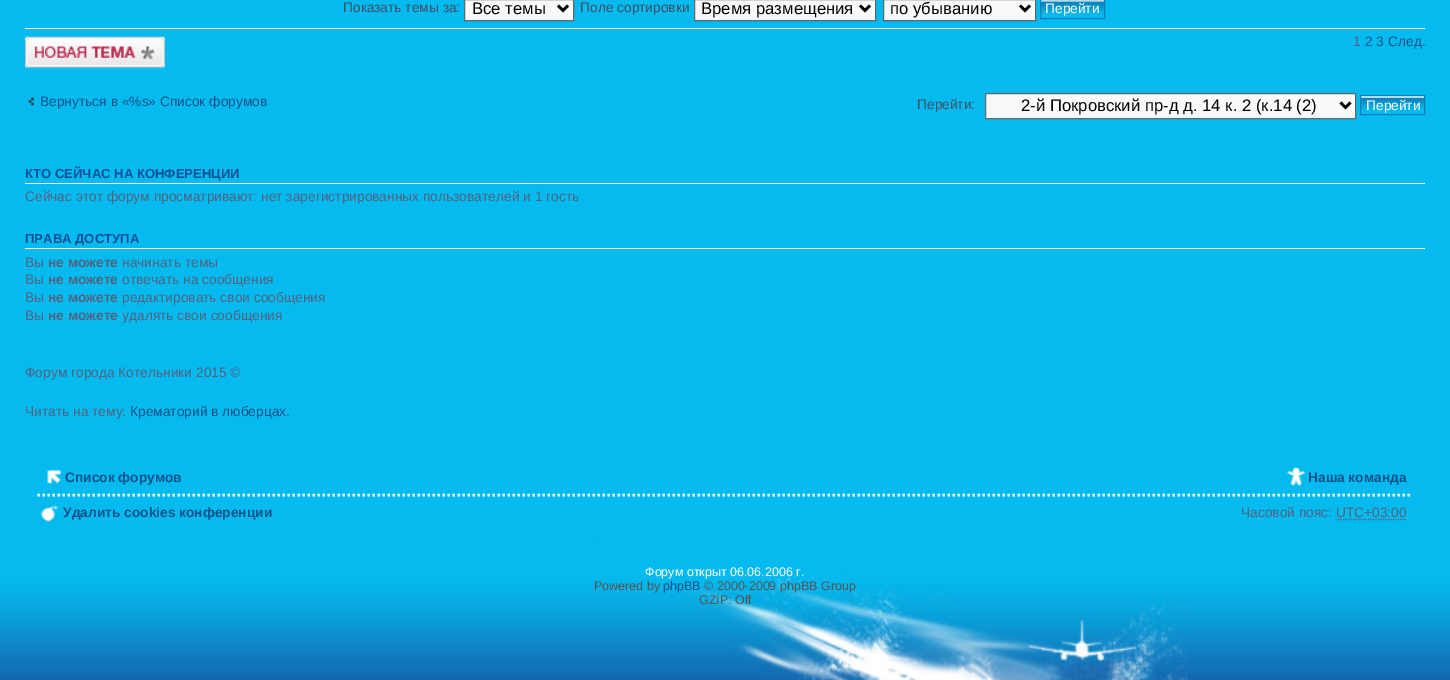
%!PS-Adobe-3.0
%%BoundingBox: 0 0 1450 680
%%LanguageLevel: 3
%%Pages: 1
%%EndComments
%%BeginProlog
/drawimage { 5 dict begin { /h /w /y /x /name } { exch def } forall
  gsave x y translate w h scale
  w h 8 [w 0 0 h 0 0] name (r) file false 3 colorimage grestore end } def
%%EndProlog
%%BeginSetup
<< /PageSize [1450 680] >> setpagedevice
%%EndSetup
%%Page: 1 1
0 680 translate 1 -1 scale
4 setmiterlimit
0.016 0.729 0.933 setrgbcolor
0 0 1450 680 rectfill
0.98 setgray
newpath 464.5 -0.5 moveto 573.5 -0.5 lineto 573.5 20.5 lineto 464.5 20.5 lineto closepath gsave fill grestore
0.4 setgray
stroke
0 setgray
2.5 setlinewidth
newpath 558 5.5 moveto 563 10.5 lineto 568 5.5 lineto stroke
0.98 setgray
newpath 694.5 -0.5 moveto 875.5 -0.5 lineto 875.5 20.5 lineto 694.5 20.5 lineto closepath gsave fill grestore
0.4 setgray
1 setlinewidth
stroke
0 setgray
2.5 setlinewidth
newpath 860 5.5 moveto 865 10.5 lineto 870 5.5 lineto stroke
0.98 setgray
newpath 883.5 -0.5 moveto 1035.5 -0.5 lineto 1035.5 20.5 lineto 883.5 20.5 lineto closepath gsave fill grestore
0.4 setgray
1 setlinewidth
stroke
0 setgray
2.5 setlinewidth
newpath 1020 5.5 moveto 1025 10.5 lineto 1030 5.5 lineto stroke
0.98 setgray
1041 0 63 1 rectfill
(images/1.raw) 1041 1 63 17 drawimage
0.047 0.498 0.722 setrgbcolor
1 setlinewidth
1040.5 -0.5 64 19 rectstroke
1 setgray
25 28 1400 1 rectfill
(images/2.raw) 25 36 140 32 drawimage
(images/3.raw) 28 97 6 9 drawimage
0.98 setgray
newpath 985.5 93.5 moveto 1355.5 93.5 lineto 1355.5 118.5 lineto 985.5 118.5 lineto closepath gsave fill grestore
0.4 setgray
stroke
0 setgray
2.5 setlinewidth
newpath 1340.5 102.5 moveto 1345.5 107.5 lineto 1350.5 102.5 lineto stroke
0.98 setgray
1361 96 63 1 rectfill
(images/4.raw) 1361 97 63 17 drawimage
0.047 0.498 0.722 setrgbcolor
1 setlinewidth
1360.5 95.5 64 19 rectstroke
1 setgray
25 183 1400 1 rectfill
25 248 1400 1 rectfill
2.5 setlinewidth
[2.5 2.5] 0 setdash
newpath 37.5 495 moveto 1412.5 495 lineto stroke
(images/5.raw) 47 470 15 15 drawimage
(images/6.raw) 1287 467 19 19 drawimage
(images/7.raw) 41 504 17 18 drawimage
0.325 0.392 0.51 setrgbcolor
1.2 setlinewidth
[1.25 1.25] 0 setdash
newpath 1335.5 519.5 moveto 1406 519.5 lineto stroke
(images/8.raw) 0 534 1450 146 drawimage
/LiberationSans-Regular [13.75 0 0 -13.75 0 0] selectfont
0.259 0.314 0.404 setrgbcolor
343 12 moveto (Показать темы за:) show
/LiberationSans-Regular [16.7 0 0 -16.7 0 0] selectfont
0 setgray
472 14 moveto (Все темы) show
/LiberationSans-Regular [13.75 0 0 -13.75 0 0] selectfont
0.259 0.314 0.404 setrgbcolor
580 12 moveto (Поле сортировки) show
/LiberationSans-Regular [16.7 0 0 -16.7 0 0] selectfont
0 setgray
701 14 moveto (Время размещения) show
890 14 moveto (по убыванию) show
/LiberationSans-Regular [13.75 0 0 -13.75 0 0] selectfont
1 setgray
1045 13 moveto (Перейти) show
0.325 0.392 0.51 setrgbcolor
1353 46 moveto (1) show
0.063 0.322 0.537 setrgbcolor
1365 46 moveto (2 3 След.) show
40 106 moveto (Вернуться в «%s» Список форумов) show
0.259 0.314 0.404 setrgbcolor
917 109 moveto (Перейти:) show
/LiberationSans-Regular [16.7 0 0 -16.7 0 0] selectfont
0 setgray
1021 111 moveto (2-й Покровский пр-д д. 14 к. 2 \(к.14 \(2\)) show
/LiberationSans-Regular [13.75 0 0 -13.75 0 0] selectfont
1 setgray
1366 110 moveto (Перейти) show
/LiberationSans-Bold [13.1 0 0 -13.1 0 0] selectfont
0.067 0.314 0.596 setrgbcolor
25 178 moveto (КТО СЕЙЧАС НА КОНФЕРЕНЦИИ) show
/LiberationSans-Regular [13.75 0 0 -13.75 0 0] selectfont
0.325 0.392 0.51 setrgbcolor
25 201 moveto (Сейчас этот форум просматривают: нет зарегистрированных пользователей и 1 гость) show
/LiberationSans-Bold [13.1 0 0 -13.1 0 0] selectfont
0.067 0.314 0.596 setrgbcolor
25 243 moveto (ПРАВА ДОСТУПА) show
/LiberationSans-Regular [13.75 0 0 -13.75 0 0] selectfont
0.325 0.392 0.51 setrgbcolor
25 267 moveto (Вы) show
/LiberationSans-Bold [13.75 0 0 -13.75 0 0] selectfont
48 267 moveto (не можете) show
/LiberationSans-Regular [13.75 0 0 -13.75 0 0] selectfont
122 267 moveto (начинать темы) show
25 284 moveto (Вы) show
/LiberationSans-Bold [13.75 0 0 -13.75 0 0] selectfont
48 284 moveto (не можете) show
/LiberationSans-Regular [13.75 0 0 -13.75 0 0] selectfont
122 284 moveto (отвечать на сообщения) show
25 302 moveto (Вы) show
/LiberationSans-Bold [13.75 0 0 -13.75 0 0] selectfont
48 302 moveto (не можете) show
/LiberationSans-Regular [13.75 0 0 -13.75 0 0] selectfont
122 302 moveto (редактировать свои сообщения) show
25 320 moveto (Вы) show
/LiberationSans-Bold [13.75 0 0 -13.75 0 0] selectfont
48 320 moveto (не можете) show
/LiberationSans-Regular [13.75 0 0 -13.75 0 0] selectfont
122 320 moveto (удалять свои сообщения) show
25 377 moveto (Форум города Котельники 2015 ©) show
25 416 moveto (Читать на тему:) show
0.063 0.322 0.537 setrgbcolor
130 416 moveto (Крематорий в люберцах.) show
/LiberationSans-Bold [13.75 0 0 -13.75 0 0] selectfont
65 482 moveto (Список форумов) show
1308 482 moveto (Наша команда) show
63 517 moveto (Удалить cookies конференции) show
/LiberationSans-Regular [13.75 0 0 -13.75 0 0] selectfont
0.325 0.392 0.51 setrgbcolor
1241 517 moveto (Часовой пояс: UTC+03:00) show
/LiberationSans-Regular [12.5 0 0 -12.5 0 0] selectfont
1 setgray
645 576 moveto (Форум открыт 06.06.2006 г.) show
0.333 setgray
594 590 moveto (Powered by) show
0.063 0.322 0.537 setrgbcolor
663 590 moveto (phpBB) show
0.333 setgray
704 590 moveto (© 2000-2009 phpBB Group) show
699 604 moveto (GZIP: Off) show
showpage
%%EOF
